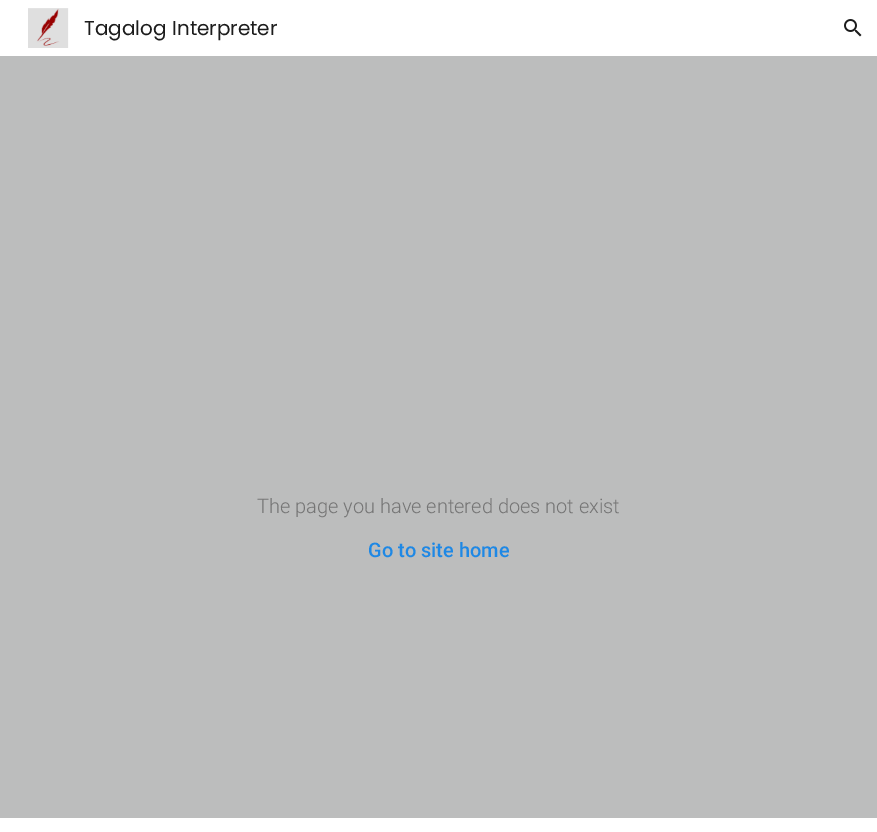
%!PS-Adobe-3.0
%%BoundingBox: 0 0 877 832
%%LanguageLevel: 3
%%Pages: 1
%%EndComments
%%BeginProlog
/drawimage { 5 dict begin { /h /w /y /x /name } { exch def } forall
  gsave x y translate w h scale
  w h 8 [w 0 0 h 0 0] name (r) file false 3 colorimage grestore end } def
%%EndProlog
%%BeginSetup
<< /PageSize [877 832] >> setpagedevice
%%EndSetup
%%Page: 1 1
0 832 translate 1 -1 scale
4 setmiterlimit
1 setgray
0 0 877 832 rectfill
(images/1.raw) 28 8 41 40 drawimage
(images/2.raw) 844 19 18 18 drawimage
0.737 0.741 0.741 setrgbcolor
0 56 877 762 rectfill
/Poppins-Regular [20 0 0 -20 0 0] selectfont
0.11 setgray
84 35 moveto (Tagalog Interpreter) show
/Roboto-Light [20 0 0 -20 0 0] selectfont
0.459 setgray
257 513 moveto (The page you have entered does not exist) show
/Roboto-Medium [20 0 0 -20 0 0] selectfont
0.118 0.533 0.898 setrgbcolor
368 557 moveto (Go to site home) show
showpage
%%EOF
